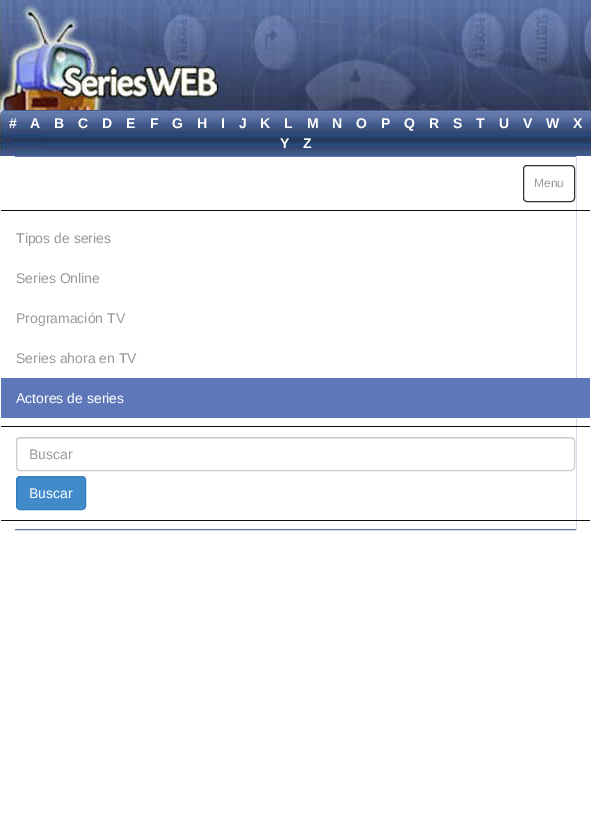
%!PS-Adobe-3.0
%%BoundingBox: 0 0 591 820
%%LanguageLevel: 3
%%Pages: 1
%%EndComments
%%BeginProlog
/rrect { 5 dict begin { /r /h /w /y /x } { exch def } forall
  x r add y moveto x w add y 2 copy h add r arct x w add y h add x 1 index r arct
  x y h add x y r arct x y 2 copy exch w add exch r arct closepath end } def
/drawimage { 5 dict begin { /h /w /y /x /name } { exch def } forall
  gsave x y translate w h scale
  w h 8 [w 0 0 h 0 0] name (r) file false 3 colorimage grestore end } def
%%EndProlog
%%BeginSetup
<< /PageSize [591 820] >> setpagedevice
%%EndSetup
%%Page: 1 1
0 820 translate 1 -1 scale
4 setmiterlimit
1 setgray
0 0 591 820 rectfill
(images/1.raw) 0 0 591 110 drawimage
(images/2.raw) 0 110 591 46 drawimage
0.369 0.467 0.725 setrgbcolor
15.5 156.5 560 373 rectstroke
1 setgray
15 157 561 372 rectfill
0.2 setgray
523.5 165.5 51 36 3.5 rrect stroke
0.063 setgray
1 210 589 1 rectfill
0.369 0.467 0.725 setrgbcolor
1 378 589 40 rectfill
0.063 setgray
1 426 589 1 rectfill
1 520 589 1 rectfill
0.925 setgray
newpath 20 439 moveto 571 439 lineto 573 439 574 440 574 442 curveto 574 440 573 438 571 438 curveto 20 438 lineto 18 439 lineto 17 440 lineto 17 442 lineto 17 440 18 439 20 439 curveto closepath fill
0.8 setgray
16.5 437.5 558 33 3.5 rrect stroke
0.259 0.545 0.792 setrgbcolor
16.5 476.5 69 33 3.5 rrect gsave fill grestore
0.208 0.494 0.741 setrgbcolor
stroke
/LiberationSans-Bold [14 0 0 -14 0 0] selectfont
1 setgray
9 128 moveto (#) show
30 128 moveto (A) show
54 128 moveto (B) show
78 128 moveto (C) show
102 128 moveto (D) show
126 128 moveto (E) show
150 128 moveto (F) show
172 128 moveto (G) show
197 128 moveto (H) show
221 128 moveto (I) show
239 128 moveto (J) show
260 128 moveto (K) show
284 128 moveto (L) show
307 128 moveto (M) show
332 128 moveto (N) show
356 128 moveto (O) show
381 128 moveto (P) show
404 128 moveto (Q) show
429 128 moveto (R) show
453 128 moveto (S) show
476 128 moveto (T) show
499 128 moveto (U) show
523 128 moveto (V) show
546 128 moveto (W) show
573 128 moveto (X) show
280 148 moveto (Y) show
303 148 moveto (Z) show
/LiberationSans-Regular [12 0 0 -12 0 0] selectfont
0.6 setgray
534 187 moveto (Menu) show
/LiberationSans-Regular [14 0 0 -14 0 0] selectfont
16 243 moveto (Tipos de series) show
16 283 moveto (Series Online) show
16 323 moveto (Programación TV) show
16 363 moveto (Series ahora en TV) show
1 setgray
16 403 moveto (Actores de series) show
0.6 setgray
29 459 moveto (Buscar) show
1 setgray
29 498 moveto (Buscar) show
showpage
%%EOF
